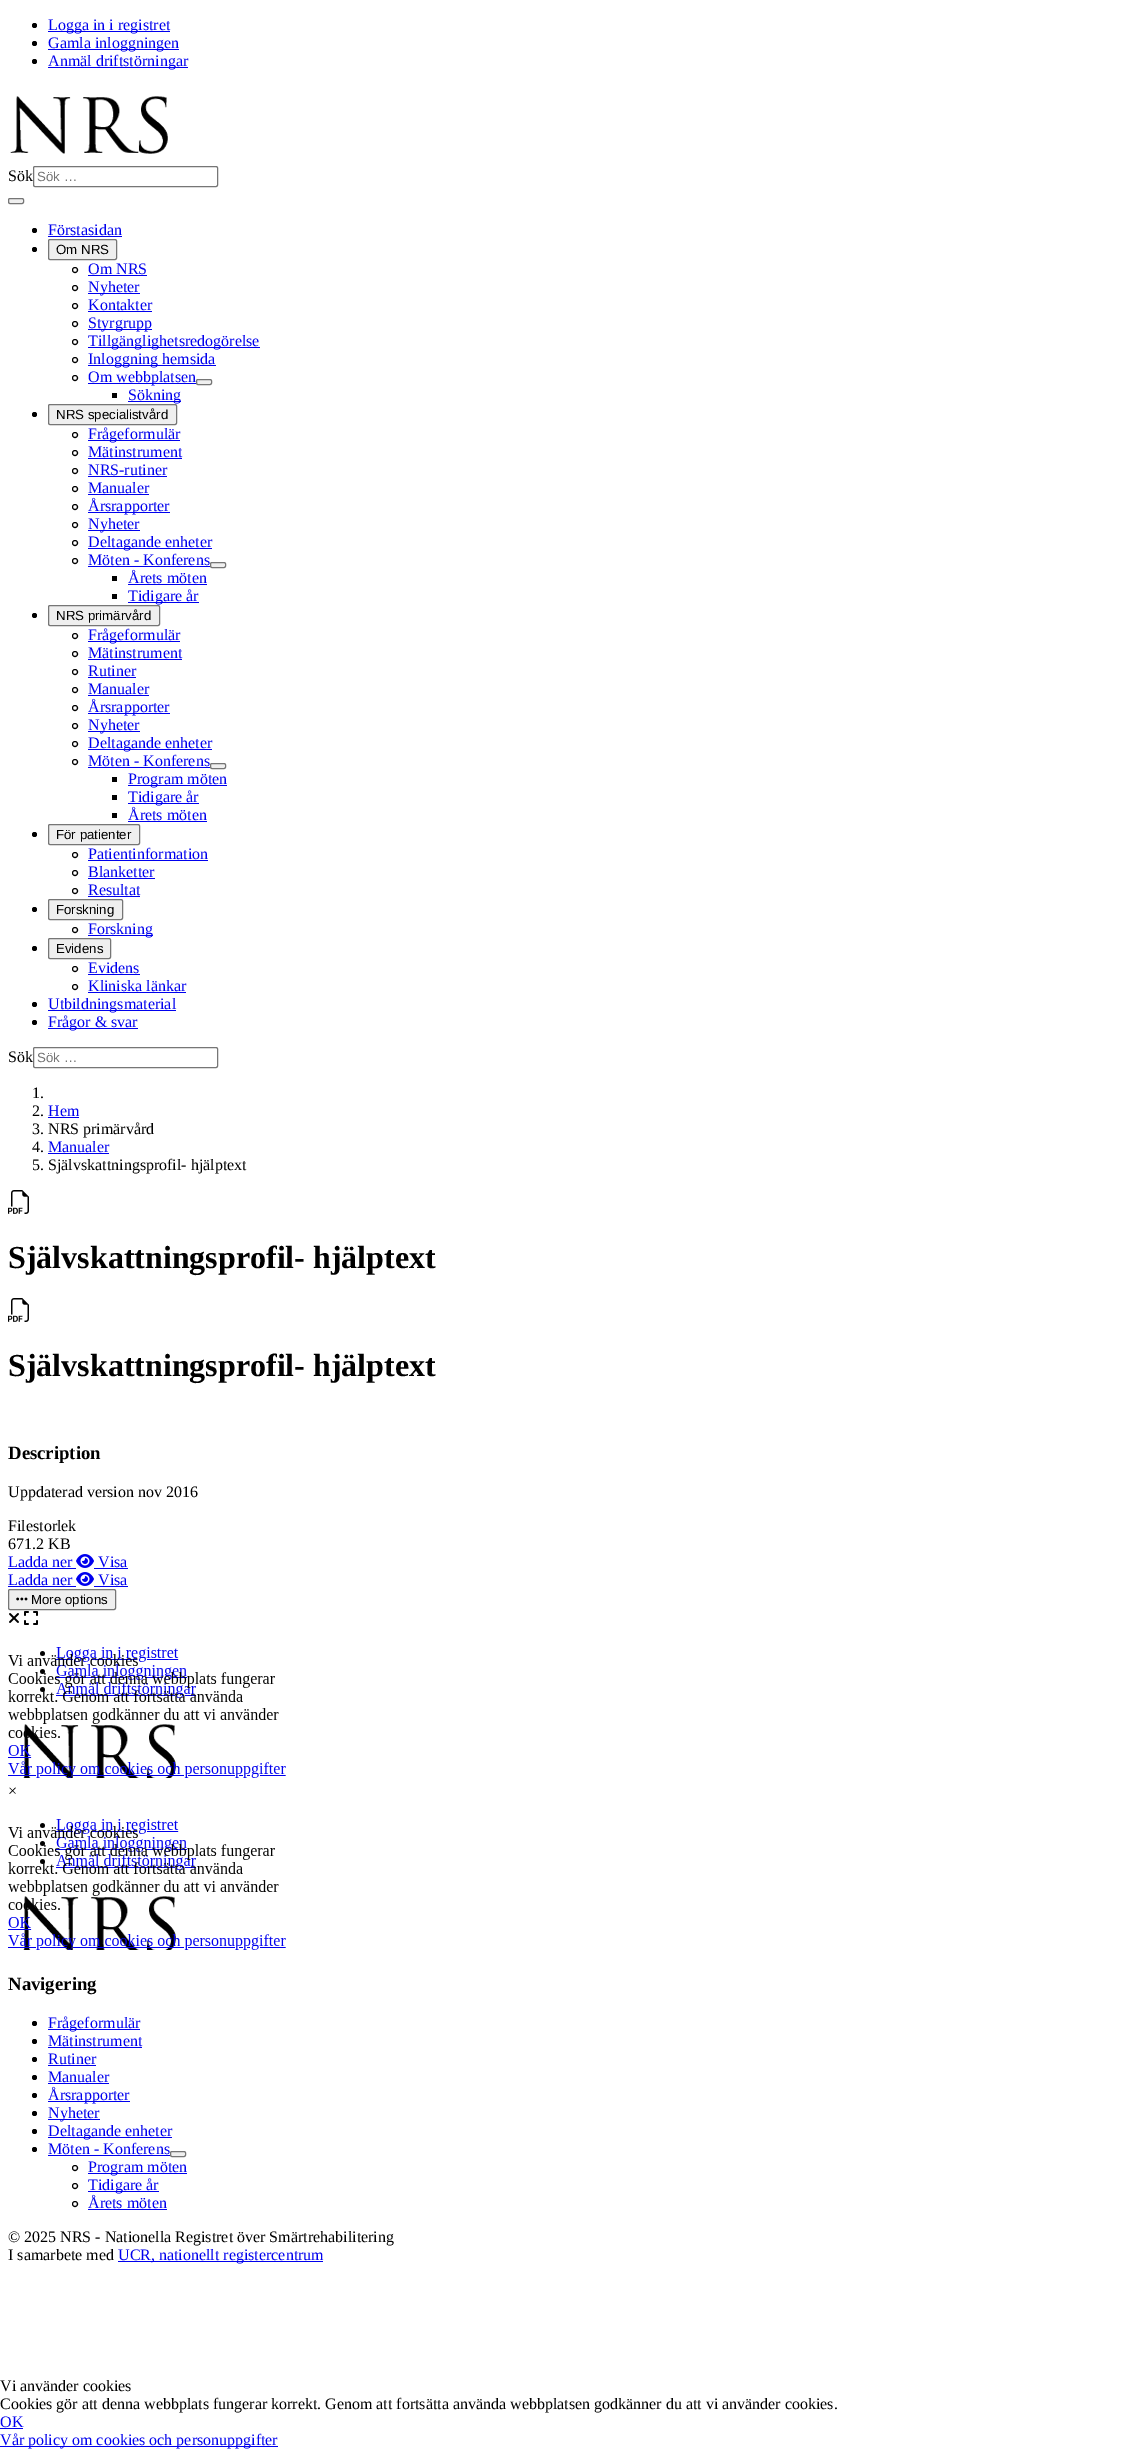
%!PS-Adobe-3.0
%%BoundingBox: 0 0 1148 2449
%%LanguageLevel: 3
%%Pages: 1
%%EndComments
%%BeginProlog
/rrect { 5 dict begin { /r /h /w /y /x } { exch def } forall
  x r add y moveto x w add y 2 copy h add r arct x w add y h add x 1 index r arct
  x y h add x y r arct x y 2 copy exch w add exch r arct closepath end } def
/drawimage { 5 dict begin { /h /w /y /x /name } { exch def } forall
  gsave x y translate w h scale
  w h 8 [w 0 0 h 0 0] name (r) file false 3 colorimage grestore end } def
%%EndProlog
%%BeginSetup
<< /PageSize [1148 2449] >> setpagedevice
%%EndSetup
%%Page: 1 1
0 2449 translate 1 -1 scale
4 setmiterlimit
1 setgray
0 0 1148 2449 rectfill
0 setgray
newpath 34.5 25.5 2.5 0 360 arc closepath fill
0 0 0.933 setrgbcolor
48 31 122 1 rectfill
0 setgray
newpath 34.5 43.5 2.5 0 360 arc closepath fill
0 0 0.933 setrgbcolor
48 49 131 1 rectfill
0 setgray
newpath 34.5 61.5 2.5 0 360 arc closepath fill
0 0 0.933 setrgbcolor
48 67 140 1 rectfill
(images/1.raw) 10 96 158 58 drawimage
0.463 setgray
33.5 166.5 184 20 1.5 rrect stroke
0.937 setgray
8.5 198.5 15 5 1.5 rrect gsave fill grestore
0.463 setgray
stroke
0 setgray
newpath 34.5 230.5 2.5 0 360 arc closepath fill
0 0 0.933 setrgbcolor
48 236 74 1 rectfill
0 setgray
newpath 34.5 249.5 2.5 0 360 arc closepath fill
0.937 setgray
48.5 239.5 68 20 1.5 rrect gsave fill grestore
0.463 setgray
stroke
0 setgray
newpath 75 270 2.5 0 360 arc closepath stroke
0 0 0.933 setrgbcolor
88 275 59 1 rectfill
0 setgray
newpath 75 288 2.5 0 360 arc closepath stroke
0 0 0.933 setrgbcolor
88 293 52 1 rectfill
0 setgray
newpath 75 306 2.5 0 360 arc closepath stroke
0 0 0.933 setrgbcolor
88 311 64 1 rectfill
0 setgray
newpath 75 324 2.5 0 360 arc closepath stroke
0 0 0.933 setrgbcolor
88 329 64 1 rectfill
0 setgray
newpath 75 342 2.5 0 360 arc closepath stroke
0 0 0.933 setrgbcolor
88 347 172 1 rectfill
0 setgray
newpath 75 360 2.5 0 360 arc closepath stroke
0 0 0.933 setrgbcolor
88 365 128 1 rectfill
0 setgray
newpath 75 378 2.5 0 360 arc closepath stroke
0 0 0.933 setrgbcolor
88 383 108 1 rectfill
0.937 setgray
196.5 379.5 15 5 1.5 rrect gsave fill grestore
0.463 setgray
stroke
0 setgray
112 393 5 5 rectfill
0 0 0.933 setrgbcolor
128 401 53 1 rectfill
0 setgray
newpath 34.5 414.5 2.5 0 360 arc closepath fill
0.937 setgray
48.5 404.5 128 20 1.5 rrect gsave fill grestore
0.463 setgray
stroke
0 setgray
newpath 75 435 2.5 0 360 arc closepath stroke
0 0 0.933 setrgbcolor
88 440 92 1 rectfill
0 setgray
newpath 75 453 2.5 0 360 arc closepath stroke
0 0 0.933 setrgbcolor
88 458 94 1 rectfill
0 setgray
newpath 75 471 2.5 0 360 arc closepath stroke
0 0 0.933 setrgbcolor
88 476 79 1 rectfill
0 setgray
newpath 75 489 2.5 0 360 arc closepath stroke
0 0 0.933 setrgbcolor
88 494 61 1 rectfill
0 setgray
newpath 75 507 2.5 0 360 arc closepath stroke
0 0 0.933 setrgbcolor
88 512 82 1 rectfill
0 setgray
newpath 75 525 2.5 0 360 arc closepath stroke
0 0 0.933 setrgbcolor
88 530 52 1 rectfill
0 setgray
newpath 75 543 2.5 0 360 arc closepath stroke
0 0 0.933 setrgbcolor
88 548 124 1 rectfill
0 setgray
newpath 75 561 2.5 0 360 arc closepath stroke
0 0 0.933 setrgbcolor
88 566 122 1 rectfill
0.937 setgray
210.5 562.5 15 5 1.5 rrect gsave fill grestore
0.463 setgray
stroke
0 setgray
112 576 5 5 rectfill
0 0 0.933 setrgbcolor
128 584 79 1 rectfill
0 setgray
112 594 5 5 rectfill
0 0 0.933 setrgbcolor
128 602 71 1 rectfill
0 setgray
newpath 34.5 615.5 2.5 0 360 arc closepath fill
0.937 setgray
48.5 605.5 111 20 1.5 rrect gsave fill grestore
0.463 setgray
stroke
0 setgray
newpath 75 636 2.5 0 360 arc closepath stroke
0 0 0.933 setrgbcolor
88 641 92 1 rectfill
0 setgray
newpath 75 654 2.5 0 360 arc closepath stroke
0 0 0.933 setrgbcolor
88 659 94 1 rectfill
0 setgray
newpath 75 672 2.5 0 360 arc closepath stroke
0 0 0.933 setrgbcolor
88 677 48 1 rectfill
0 setgray
newpath 75 690 2.5 0 360 arc closepath stroke
0 0 0.933 setrgbcolor
88 695 61 1 rectfill
0 setgray
newpath 75 708 2.5 0 360 arc closepath stroke
0 0 0.933 setrgbcolor
88 713 82 1 rectfill
0 setgray
newpath 75 726 2.5 0 360 arc closepath stroke
0 0 0.933 setrgbcolor
88 731 52 1 rectfill
0 setgray
newpath 75 744 2.5 0 360 arc closepath stroke
0 0 0.933 setrgbcolor
88 749 124 1 rectfill
0 setgray
newpath 75 762 2.5 0 360 arc closepath stroke
0 0 0.933 setrgbcolor
88 767 122 1 rectfill
0.937 setgray
210.5 763.5 15 5 1.5 rrect gsave fill grestore
0.463 setgray
stroke
0 setgray
112 777 5 5 rectfill
0 0 0.933 setrgbcolor
128 785 99 1 rectfill
0 setgray
112 795 5 5 rectfill
0 0 0.933 setrgbcolor
128 803 71 1 rectfill
0 setgray
112 813 5 5 rectfill
0 0 0.933 setrgbcolor
128 821 79 1 rectfill
0 setgray
newpath 34.5 834.5 2.5 0 360 arc closepath fill
0.937 setgray
48.5 824.5 91 20 1.5 rrect gsave fill grestore
0.463 setgray
stroke
0 setgray
newpath 75 855 2.5 0 360 arc closepath stroke
0 0 0.933 setrgbcolor
88 860 120 1 rectfill
0 setgray
newpath 75 873 2.5 0 360 arc closepath stroke
0 0 0.933 setrgbcolor
88 878 67 1 rectfill
0 setgray
newpath 75 891 2.5 0 360 arc closepath stroke
0 0 0.933 setrgbcolor
88 896 52 1 rectfill
0 setgray
newpath 34.5 909.5 2.5 0 360 arc closepath fill
0.937 setgray
48.5 899.5 74 20 1.5 rrect gsave fill grestore
0.463 setgray
stroke
0 setgray
newpath 75 930 2.5 0 360 arc closepath stroke
0 0 0.933 setrgbcolor
88 935 65 1 rectfill
0 setgray
newpath 34.5 948.5 2.5 0 360 arc closepath fill
0.937 setgray
48.5 938.5 62 20 1.5 rrect gsave fill grestore
0.463 setgray
stroke
0 setgray
newpath 75 969 2.5 0 360 arc closepath stroke
0 0 0.933 setrgbcolor
88 974 52 1 rectfill
0 setgray
newpath 75 987 2.5 0 360 arc closepath stroke
0 0 0.933 setrgbcolor
88 992 98 1 rectfill
0 setgray
newpath 34.5 1004.5 2.5 0 360 arc closepath fill
0 0 0.933 setrgbcolor
48 1010 128 1 rectfill
0 setgray
newpath 34.5 1022.5 2.5 0 360 arc closepath fill
0 0 0.933 setrgbcolor
48 1028 90 1 rectfill
0.463 setgray
33.5 1047.5 184 20 1.5 rrect stroke
0 0 0.933 setrgbcolor
48 1117 31 1 rectfill
48 1153 61 1 rectfill
(images/2.raw) 8 1190 21 24 drawimage
(images/2.raw) 8 1298 21 24 drawimage
8 1568 68 1 rectfill
(images/3.raw) 76 1554 18 14 drawimage
94 1568 34 1 rectfill
8 1586 68 1 rectfill
(images/3.raw) 76 1572 18 14 drawimage
94 1586 34 1 rectfill
0.937 setgray
8.5 1589.5 107 20 1.5 rrect gsave fill grestore
0.463 setgray
stroke
(images/4.raw) 16 1597 12 4 drawimage
(images/5.raw) 9 1613 10 10 drawimage
(images/6.raw) 24 1611 14 14 drawimage
(images/7.raw) 8 1647 278 131 drawimage
(images/7.raw) 8 1819 278 131 drawimage
0 setgray
newpath 34.5 2023.5 2.5 0 360 arc closepath fill
0 0 0.933 setrgbcolor
48 2029 92 1 rectfill
0 setgray
newpath 34.5 2041.5 2.5 0 360 arc closepath fill
0 0 0.933 setrgbcolor
48 2047 94 1 rectfill
0 setgray
newpath 34.5 2059.5 2.5 0 360 arc closepath fill
0 0 0.933 setrgbcolor
48 2065 48 1 rectfill
0 setgray
newpath 34.5 2077.5 2.5 0 360 arc closepath fill
0 0 0.933 setrgbcolor
48 2083 61 1 rectfill
0 setgray
newpath 34.5 2095.5 2.5 0 360 arc closepath fill
0 0 0.933 setrgbcolor
48 2101 82 1 rectfill
0 setgray
newpath 34.5 2113.5 2.5 0 360 arc closepath fill
0 0 0.933 setrgbcolor
48 2119 52 1 rectfill
0 setgray
newpath 34.5 2131.5 2.5 0 360 arc closepath fill
0 0 0.933 setrgbcolor
48 2137 124 1 rectfill
0 setgray
newpath 34.5 2149.5 2.5 0 360 arc closepath fill
0 0 0.933 setrgbcolor
48 2155 122 1 rectfill
0.937 setgray
170.5 2151.5 15 5 1.5 rrect gsave fill grestore
0.463 setgray
stroke
0 setgray
newpath 75 2168 2.5 0 360 arc closepath stroke
0 0 0.933 setrgbcolor
88 2173 99 1 rectfill
0 setgray
newpath 75 2186 2.5 0 360 arc closepath stroke
0 0 0.933 setrgbcolor
88 2191 71 1 rectfill
0 setgray
newpath 75 2204 2.5 0 360 arc closepath stroke
0 0 0.933 setrgbcolor
88 2209 79 1 rectfill
118 2261 205 1 rectfill
0 2428 23 1 rectfill
0 2446 278 1 rectfill
/LiberationSerif-Regular [16 0 0 -16 0 0] selectfont
48 30 moveto (Logga in i registret) show
48 48 moveto (Gamla inloggningen) show
48 66 moveto (Anmäl driftstörningar) show
0 setgray
8 181 moveto (Sök) show
/LiberationSans-Regular [13.25 0 0 -13.25 0 0] selectfont
0.459 setgray
37 181 moveto (Sök …) show
/LiberationSerif-Regular [16 0 0 -16 0 0] selectfont
0 0 0.933 setrgbcolor
48 235 moveto (Förstasidan) show
/LiberationSans-Regular [13.25 0 0 -13.25 0 0] selectfont
0 setgray
56 254 moveto (Om NRS) show
/LiberationSerif-Regular [16 0 0 -16 0 0] selectfont
0 0 0.933 setrgbcolor
88 274 moveto (Om NRS) show
88 292 moveto (Nyheter) show
88 310 moveto (Kontakter) show
88 328 moveto (Styrgrupp) show
88 346 moveto (Tillgänglighetsredogörelse) show
88 364 moveto (Inloggning hemsida) show
88 382 moveto (Om webbplatsen) show
128 400 moveto (Sökning) show
/LiberationSans-Regular [13.25 0 0 -13.25 0 0] selectfont
0 setgray
56 419 moveto (NRS specialistvård) show
/LiberationSerif-Regular [16 0 0 -16 0 0] selectfont
0 0 0.933 setrgbcolor
88 439 moveto (Frågeformulär) show
88 457 moveto (Mätinstrument) show
88 475 moveto (NRS-rutiner) show
88 493 moveto (Manualer) show
88 511 moveto (Årsrapporter) show
88 529 moveto (Nyheter) show
88 547 moveto (Deltagande enheter) show
88 565 moveto (Möten - Konferens) show
128 583 moveto (Årets möten) show
128 601 moveto (Tidigare år) show
/LiberationSans-Regular [13.25 0 0 -13.25 0 0] selectfont
0 setgray
56 620 moveto (NRS primärvård) show
/LiberationSerif-Regular [16 0 0 -16 0 0] selectfont
0 0 0.933 setrgbcolor
88 640 moveto (Frågeformulär) show
88 658 moveto (Mätinstrument) show
88 676 moveto (Rutiner) show
88 694 moveto (Manualer) show
88 712 moveto (Årsrapporter) show
88 730 moveto (Nyheter) show
88 748 moveto (Deltagande enheter) show
88 766 moveto (Möten - Konferens) show
128 784 moveto (Program möten) show
128 802 moveto (Tidigare år) show
128 820 moveto (Årets möten) show
/LiberationSans-Regular [13.25 0 0 -13.25 0 0] selectfont
0 setgray
56 839 moveto (För patienter) show
/LiberationSerif-Regular [16 0 0 -16 0 0] selectfont
0 0 0.933 setrgbcolor
88 859 moveto (Patientinformation) show
88 877 moveto (Blanketter) show
88 895 moveto (Resultat) show
/LiberationSans-Regular [13.25 0 0 -13.25 0 0] selectfont
0 setgray
56 914 moveto (Forskning) show
/LiberationSerif-Regular [16 0 0 -16 0 0] selectfont
0 0 0.933 setrgbcolor
88 934 moveto (Forskning) show
/LiberationSans-Regular [13.25 0 0 -13.25 0 0] selectfont
0 setgray
56 953 moveto (Evidens) show
/LiberationSerif-Regular [16 0 0 -16 0 0] selectfont
0 0 0.933 setrgbcolor
88 973 moveto (Evidens) show
88 991 moveto (Kliniska länkar) show
48 1009 moveto (Utbildningsmaterial) show
48 1027 moveto (Frågor & svar) show
0 setgray
8 1062 moveto (Sök) show
/LiberationSans-Regular [13.25 0 0 -13.25 0 0] selectfont
0.459 setgray
37 1062 moveto (Sök …) show
/LiberationSerif-Regular [16 0 0 -16 0 0] selectfont
0 setgray
32 1098 moveto (1.) show
32 1116 moveto (2.) show
0 0 0.933 setrgbcolor
48 1116 moveto (Hem) show
0 setgray
32 1134 moveto (3. NRS primärvård) show
32 1152 moveto (4.) show
0 0 0.933 setrgbcolor
48 1152 moveto (Manualer) show
0 setgray
32 1170 moveto (5. Självskattningsprofil- hjälptext) show
/LiberationSerif-Bold [32 0 0 -32 0 0] selectfont
8 1268 moveto (Självskattningsprofil- hjälptext) show
8 1376 moveto (Självskattningsprofil- hjälptext) show
/LiberationSerif-Bold [18.75 0 0 -18.75 0 0] selectfont
8 1459 moveto (Description) show
/LiberationSerif-Regular [16 0 0 -16 0 0] selectfont
8 1497 moveto (Uppdaterad version nov 2016) show
8 1531 moveto (Filestorlek) show
8 1549 moveto (671.2 KB) show
0 0 0.933 setrgbcolor
8 1567 moveto (Ladda ner) show
98 1567 moveto (Visa) show
8 1585 moveto (Ladda ner) show
98 1585 moveto (Visa) show
/LiberationSans-Regular [13.25 0 0 -13.25 0 0] selectfont
0 setgray
31 1604 moveto (More options) show
/LiberationSerif-Regular [16 0 0 -16 0 0] selectfont
8 1796 moveto (×) show
/LiberationSerif-Bold [18.75 0 0 -18.75 0 0] selectfont
8 1990 moveto (Navigering) show
/LiberationSerif-Regular [16 0 0 -16 0 0] selectfont
0 0 0.933 setrgbcolor
48 2028 moveto (Frågeformulär) show
48 2046 moveto (Mätinstrument) show
48 2064 moveto (Rutiner) show
48 2082 moveto (Manualer) show
48 2100 moveto (Årsrapporter) show
48 2118 moveto (Nyheter) show
48 2136 moveto (Deltagande enheter) show
48 2154 moveto (Möten - Konferens) show
88 2172 moveto (Program möten) show
88 2190 moveto (Tidigare år) show
88 2208 moveto (Årets möten) show
0 setgray
8 2242 moveto (© 2025 NRS - Nationella Registret över Smärtrehabilitering) show
8 2260 moveto (I samarbete med) show
0 0 0.933 setrgbcolor
118 2260 moveto (UCR, nationellt registercentrum) show
0 setgray
0 2391 moveto (Vi använder cookies) show
0 2409 moveto (Cookies gör att denna webbplats fungerar korrekt. Genom att fortsätta använda webbplatsen godkänner du att vi använder cookies.) show
0 0 0.933 setrgbcolor
0 2427 moveto (OK) show
0 2445 moveto (Vår policy om cookies och personuppgifter) show
showpage
%%EOF
